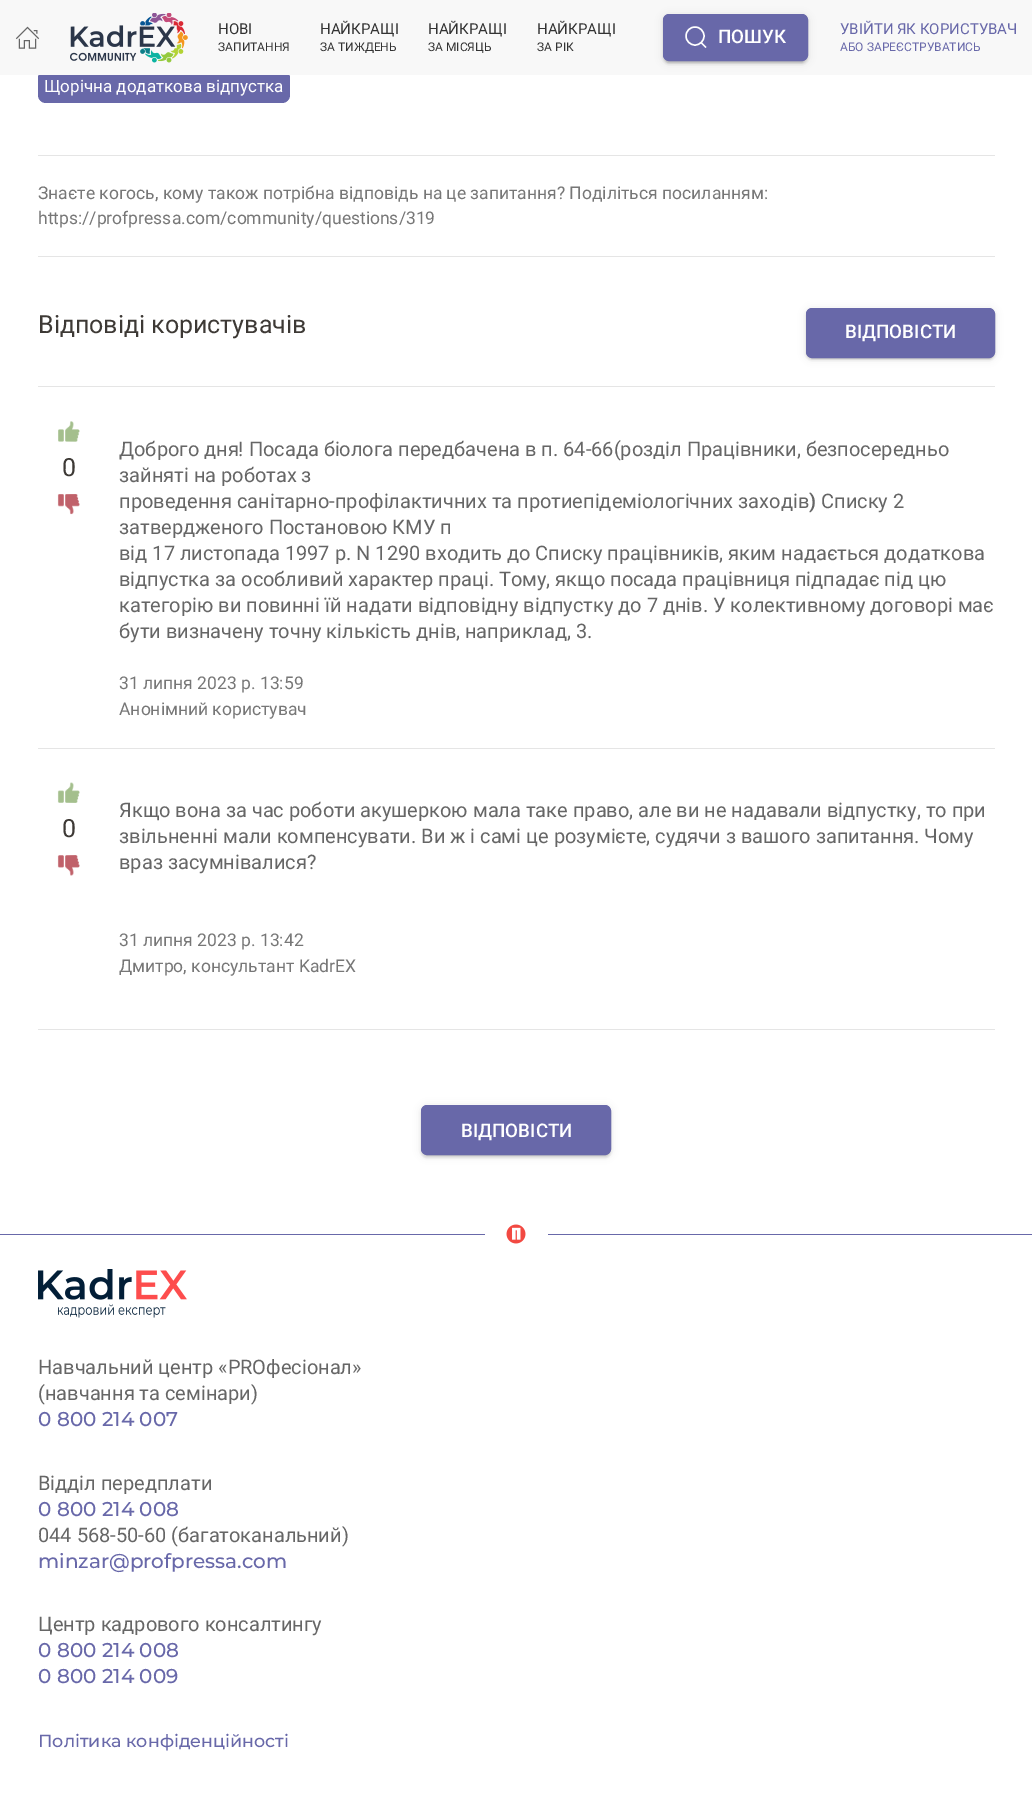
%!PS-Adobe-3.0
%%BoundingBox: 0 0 1032 1805
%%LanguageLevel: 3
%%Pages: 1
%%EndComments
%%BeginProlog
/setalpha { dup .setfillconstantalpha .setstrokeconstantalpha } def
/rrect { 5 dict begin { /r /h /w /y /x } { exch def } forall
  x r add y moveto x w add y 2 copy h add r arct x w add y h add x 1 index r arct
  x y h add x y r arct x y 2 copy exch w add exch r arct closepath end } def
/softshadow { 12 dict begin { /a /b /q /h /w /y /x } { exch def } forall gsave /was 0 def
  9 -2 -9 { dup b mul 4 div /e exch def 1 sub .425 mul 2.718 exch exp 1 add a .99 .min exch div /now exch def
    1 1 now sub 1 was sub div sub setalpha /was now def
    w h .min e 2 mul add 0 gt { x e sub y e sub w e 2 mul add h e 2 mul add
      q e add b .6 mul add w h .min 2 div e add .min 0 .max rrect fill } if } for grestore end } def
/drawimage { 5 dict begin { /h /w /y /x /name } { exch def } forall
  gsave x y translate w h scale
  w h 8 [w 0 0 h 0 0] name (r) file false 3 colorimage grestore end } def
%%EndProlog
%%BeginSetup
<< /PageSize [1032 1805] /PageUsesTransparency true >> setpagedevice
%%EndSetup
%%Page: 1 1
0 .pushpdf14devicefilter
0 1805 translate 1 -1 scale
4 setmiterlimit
1 setgray
0 0 1032 1805 rectfill
0.408 0.408 0.663 setrgbcolor
38 70 252 33 8 rrect fill
0.973 setgray
0 0 1032 75 rectfill
(images/1.raw) 15 26 25 23 drawimage
(images/2.raw) 70 13 118 50 drawimage
0 setgray
663 15 145 48 6 4 0.1 softshadow
665 20 140 43 4 0.5 0.1 softshadow
663 16 145 48 6 1 0.1 softshadow
0.408 0.408 0.663 setrgbcolor
663.5 14.5 144 46 5.5 rrect gsave fill grestore
stroke
1 setgray
1.4 setlinewidth
newpath 695 36 9 0 360 arc closepath stroke
newpath 701 42.5 moveto 706 47.5 lineto closepath stroke
0.898 setgray
38 155 957 1 rectfill
38 256 957 1 rectfill
0 setgray
806 309 189 50 6 4 0.1 softshadow
809 314 184 45 4 0.5 0.1 softshadow
806 310 189 50 6 1 0.1 softshadow
0.408 0.408 0.663 setrgbcolor
806.5 308.5 188 49 5.5 rrect gsave fill grestore
1 setlinewidth
stroke
0.898 setgray
38 386 957 1 rectfill
(images/3.raw) 58 421 22 21 drawimage
(images/4.raw) 57 494 23 21 drawimage
38 748 957 1 rectfill
(images/5.raw) 57 782 23 21 drawimage
(images/6.raw) 57 855 23 21 drawimage
38 1029 957 1 rectfill
0 setgray
421 1106 190 50 6 4 0.1 softshadow
424 1111 185 45 4 0.5 0.1 softshadow
421 1108 190 50 6 1 0.1 softshadow
0.408 0.408 0.663 setrgbcolor
421.5 1105.5 189 49 5.5 rrect gsave fill grestore
stroke
(images/7.raw) 506 1224 20 20 drawimage
0 1234 485 1 rectfill
548 1234 484 1 rectfill
(images/8.raw) 38 1269 149 49 drawimage
/Roboto-Regular [15 0 0 -15 0 0] selectfont
0.2 setgray
218 34 moveto (НОВІ) show
/Roboto-Regular [12 0 0 -12 0 0] selectfont
218 51 moveto (ЗАПИТАННЯ) show
/Roboto-Regular [15 0 0 -15 0 0] selectfont
320 34 moveto (НАЙКРАЩІ) show
/Roboto-Regular [12 0 0 -12 0 0] selectfont
320 51 moveto (ЗА ТИЖДЕНЬ) show
/Roboto-Regular [15 0 0 -15 0 0] selectfont
428 34 moveto (НАЙКРАЩІ) show
/Roboto-Regular [12 0 0 -12 0 0] selectfont
428 51 moveto (ЗА МІСЯЦЬ) show
/Roboto-Regular [15 0 0 -15 0 0] selectfont
537 34 moveto (НАЙКРАЩІ) show
/Roboto-Regular [12 0 0 -12 0 0] selectfont
537 51 moveto (ЗА РІК) show
/Roboto-Medium [18.75 0 0 -18.75 0 0] selectfont
1 setgray
718 43 moveto (ПОШУК) show
/Roboto-Regular [15 0 0 -15 0 0] selectfont
0.408 0.408 0.663 setrgbcolor
840 34 moveto (УВІЙТИ ЯК КОРИСТУВАЧ) show
/Roboto-Regular [12 0 0 -12 0 0] selectfont
840 51 moveto (АБО ЗАРЕЄСТРУВАТИСЬ) show
/Roboto-Regular [17 0 0 -17 0 0] selectfont
1 setgray
44 92 moveto (Щорічна додаткова відпустка) show
/Roboto-Regular [17.5 0 0 -17.5 0 0] selectfont
0.467 setgray
38 199 moveto (Знаєте когось, кому також потрібна відповідь на це запитання? Поділіться посиланням:) show
38 224 moveto (https://profpressa.com/community/questions/319) show
/Roboto-Regular [25 0 0 -25 0 0] selectfont
0.239 0.224 0.208 setrgbcolor
38 333 moveto (Відповіді користувачів) show
/Roboto-Medium [18.75 0 0 -18.75 0 0] selectfont
1 setgray
845 338 moveto (ВІДПОВІСТИ) show
/Roboto-Regular [25 0 0 -25 0 0] selectfont
0.239 0.224 0.208 setrgbcolor
62 476 moveto (0) show
/Roboto-Regular [20 0 0 -20 0 0] selectfont
0.4 setgray
119 456 moveto (Доброго дня! Посада біолога передбачена в п. 64-66\(розділ Працівники, безпосередньо) show
119 482 moveto (зайняті на роботах з) show
119 508 moveto (проведення санітарно-профілактичних та протиепідеміологічних заходів) show
/Roboto-SemiBold [20 0 0 -20 0 0] selectfont
809 508 moveto (\)) show
/Roboto-Regular [20 0 0 -20 0 0] selectfont
821 508 moveto (Списку 2) show
119 534 moveto (затвердженого Постановою КМУ п) show
119 560 moveto (від 17 листопада 1997 р. N 1290 входить до Списку працівників, яким надається додаткова) show
119 586 moveto (відпустка за особливий характер праці. Тому, якщо посада працівниця підпадає під цю) show
119 612 moveto (категорію ви повинні їй надати відповідну відпустку до 7 днів. У колективному договорі має) show
119 638 moveto (бути визначену точну кількість днів, наприклад, 3.) show
/Roboto-Regular [17.5 0 0 -17.5 0 0] selectfont
0.467 setgray
119 689 moveto (31 липня 2023 р. 13:59) show
119 715 moveto (Анонімний користувач) show
/Roboto-Regular [25 0 0 -25 0 0] selectfont
0.239 0.224 0.208 setrgbcolor
62 837 moveto (0) show
/Roboto-Regular [20 0 0 -20 0 0] selectfont
0.4 setgray
119 817 moveto (Якщо вона за час роботи акушеркою мала таке право, але ви не надавали відпустку, то при) show
119 843 moveto (звільненні мали компенсувати. Ви ж і самі це розумієте, судячи з вашого запитання. Чому) show
119 869 moveto (враз засумнівалися?) show
/Roboto-Regular [17.5 0 0 -17.5 0 0] selectfont
0.467 setgray
119 946 moveto (31 липня 2023 р. 13:42) show
119 972 moveto (Дмитро, консультант KadrEX) show
/Roboto-Medium [18.75 0 0 -18.75 0 0] selectfont
1 setgray
461 1137 moveto (ВІДПОВІСТИ) show
/Roboto-Regular [20 0 0 -20 0 0] selectfont
0.4 setgray
38 1374 moveto (Навчальний центр «PROфесіонал») show
38 1400 moveto (\(навчання та семінари\)) show
/Montserrat-Medium [20 0 0 -20 0 0] selectfont
0.408 0.408 0.663 setrgbcolor
38 1426 moveto (0 800 214 007) show
/Roboto-Regular [20 0 0 -20 0 0] selectfont
0.4 setgray
38 1490 moveto (Відділ передплати) show
/Montserrat-Medium [20 0 0 -20 0 0] selectfont
0.408 0.408 0.663 setrgbcolor
38 1516 moveto (0 800 214 008) show
/Roboto-Regular [20 0 0 -20 0 0] selectfont
0.4 setgray
38 1542 moveto (044 568-50-60 \(багатоканальний\)) show
/Montserrat-Medium [20 0 0 -20 0 0] selectfont
0.408 0.408 0.663 setrgbcolor
38 1568 moveto (minzar@profpressa.com) show
/Roboto-Regular [20 0 0 -20 0 0] selectfont
0.4 setgray
38 1631 moveto (Центр кадрового консалтингу) show
/Montserrat-Medium [20 0 0 -20 0 0] selectfont
0.408 0.408 0.663 setrgbcolor
38 1657 moveto (0 800 214 008) show
38 1683 moveto (0 800 214 009) show
/Montserrat-Medium [17.5 0 0 -17.5 0 0] selectfont
38 1747 moveto (Політика конфіденційності) show
.poppdf14devicefilter showpage
%%EOF
